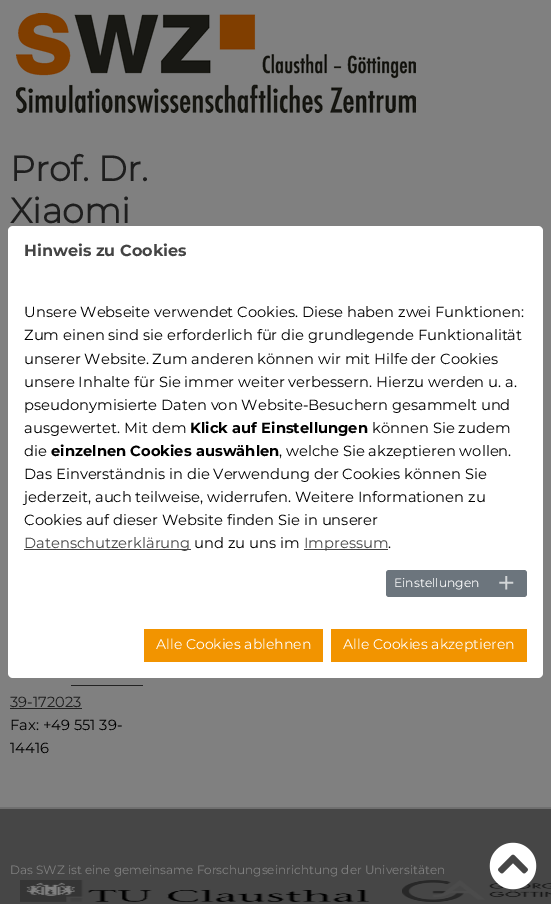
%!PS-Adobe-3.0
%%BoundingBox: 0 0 551 904
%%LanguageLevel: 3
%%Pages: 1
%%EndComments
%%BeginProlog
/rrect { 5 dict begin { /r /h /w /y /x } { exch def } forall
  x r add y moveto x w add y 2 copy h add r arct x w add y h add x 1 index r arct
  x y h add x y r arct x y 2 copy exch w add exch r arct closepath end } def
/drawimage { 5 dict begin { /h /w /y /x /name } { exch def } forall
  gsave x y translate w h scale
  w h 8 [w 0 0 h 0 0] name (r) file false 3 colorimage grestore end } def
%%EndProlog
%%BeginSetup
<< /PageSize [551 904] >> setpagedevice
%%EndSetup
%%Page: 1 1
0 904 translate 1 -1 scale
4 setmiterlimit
0.502 setgray
0 0 551 904 rectfill
(images/1.raw) 16 13 400 100 drawimage
0.133 setgray
71 685 72 1 rectfill
10 708 72 1 rectfill
0.275 setgray
0 809 551 95 rectfill
0.435 setgray
0 807 551 2 rectfill
(images/2.raw) 20 880 349 22 drawimage
(images/3.raw) 402 880 149 22 drawimage
1 setgray
8 226 535 452 5 rrect fill
0.267 setgray
24 549 167 1 rectfill
304 549 84 1 rectfill
0.424 0.459 0.49 setrgbcolor
386 570 141 27 3 rrect fill
0.949 0.58 0 setrgbcolor
144 629 179 33 rectfill
331 629 196 33 rectfill
(images/4.raw) 489 842 48 48 drawimage
/Montserrat-Bold [35 0 0 -35 0 0] selectfont
0.118 setgray
10 181 moveto (Prof. Dr.) show
10 223 moveto (Xiaomi) show
/Montserrat-Regular [14.7 0 0 -14.7 0 0] selectfont
10 707 moveto (39-172023) show
0 setgray
10 730 moveto (Fax: +49 551 39-) show
10 753 moveto (14416) show
/Montserrat-Regular [12 0 0 -12 0 0] selectfont
0.502 setgray
10 874 moveto (Das SWZ ist eine gemeinsame Forschungseinrichtung der Universitäten) show
/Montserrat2-Bold [16 0 0 -16 0 0] selectfont
0.267 setgray
24 256 moveto (Hinweis zu Cookies) show
/Montserrat-Regular [14.7 0 0 -14.7 0 0] selectfont
0 setgray
24 317 moveto (Unsere Webseite verwendet Cookies. Diese haben zwei Funktionen:) show
24 340 moveto (Zum einen sind sie erforderlich für die grundlegende Funktionalität) show
24 364 moveto (unserer Website. Zum anderen können wir mit Hilfe der Cookies) show
24 387 moveto (unsere Inhalte für Sie immer weiter verbessern. Hierzu werden u. a.) show
24 410 moveto (pseudonymisierte Daten von Website-Besuchern gesammelt und) show
24 433 moveto (ausgewertet. Mit dem) show
/Montserrat2-Bold [14.7 0 0 -14.7 0 0] selectfont
190 433 moveto (Klick auf Einstellungen) show
/Montserrat-Regular [14.7 0 0 -14.7 0 0] selectfont
372 433 moveto (können Sie zudem) show
24 456 moveto (die) show
/Montserrat2-Bold [14.7 0 0 -14.7 0 0] selectfont
51 456 moveto (einzelnen Cookies auswählen) show
/Montserrat-Regular [14.7 0 0 -14.7 0 0] selectfont
279 456 moveto (, welche Sie akzeptieren wollen.) show
24 479 moveto (Das Einverständnis in die Verwendung der Cookies können Sie) show
24 502 moveto (jederzeit, auch teilweise, widerrufen. Weitere Informationen zu) show
24 525 moveto (Cookies auf dieser Website finden Sie in unserer) show
0.267 setgray
24 548 moveto (Datenschutzerklärung) show
0 setgray
194 548 moveto (und zu uns im) show
0.267 setgray
304 548 moveto (Impressum) show
0 setgray
388 548 moveto (.) show
/Montserrat-Regular [12.25 0 0 -12.25 0 0] selectfont
1 setgray
394 587 moveto (Einstellungen) show
/Montserrat-Regular [32 0 0 -32 0 0] selectfont
0.827 0.839 0.847 setrgbcolor
497 594 moveto (+) show
/Montserrat-Regular [14 0 0 -14 0 0] selectfont
1 setgray
156 649 moveto (Alle Cookies ablehnen) show
343 649 moveto (Alle Cookies akzeptieren) show
showpage
%%EOF
